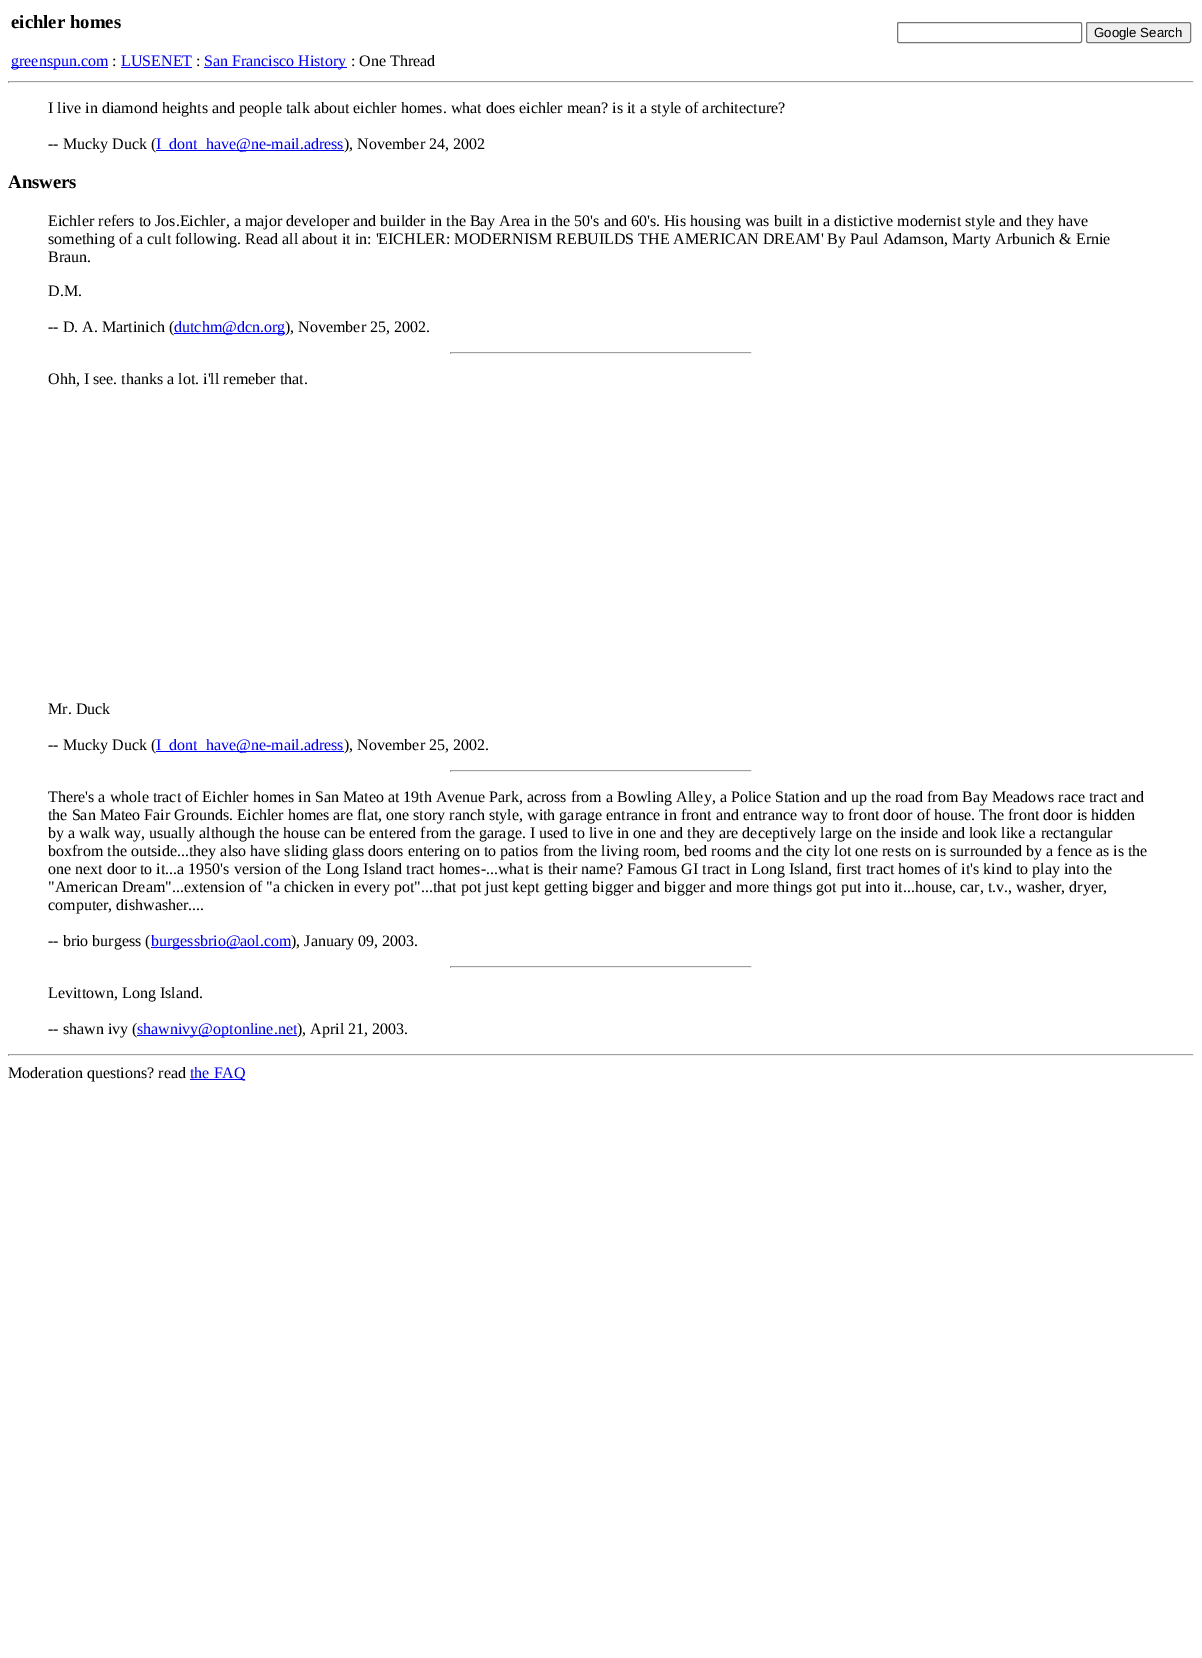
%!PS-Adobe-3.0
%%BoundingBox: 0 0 1202 1658
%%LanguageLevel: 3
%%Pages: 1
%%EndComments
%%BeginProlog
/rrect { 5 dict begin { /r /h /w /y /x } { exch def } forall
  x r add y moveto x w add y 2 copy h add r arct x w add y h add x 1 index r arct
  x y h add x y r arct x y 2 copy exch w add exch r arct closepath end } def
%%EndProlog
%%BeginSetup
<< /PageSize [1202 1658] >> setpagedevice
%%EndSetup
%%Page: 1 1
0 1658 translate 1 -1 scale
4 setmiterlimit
1 setgray
0 0 1202 1658 rectfill
0 0 0.933 setrgbcolor
11 67 97 1 rectfill
121 67 71 1 rectfill
204 67 143 1 rectfill
0.463 setgray
897.5 22.5 184 20 1.5 rrect stroke
0.937 setgray
1086.5 22.5 104 20 1.5 rrect gsave fill grestore
0.463 setgray
stroke
0.624 setgray
8 81 1186 1 rectfill
0.933 setgray
1193 81 1 2 rectfill
8 82 1186 1 rectfill
0.624 setgray
8 81 1 2 rectfill
0 0 0.933 setrgbcolor
156 150 188 1 rectfill
174 333 111 1 rectfill
0.624 setgray
450 352 302 1 rectfill
0.933 setgray
751 352 1 2 rectfill
450 353 302 1 rectfill
0.624 setgray
450 352 1 2 rectfill
0 0 0.933 setrgbcolor
156 751 188 1 rectfill
0.624 setgray
450 770 302 1 rectfill
0.933 setgray
751 770 1 2 rectfill
450 771 302 1 rectfill
0.624 setgray
450 770 1 2 rectfill
0 0 0.933 setrgbcolor
151 947 140 1 rectfill
0.624 setgray
450 966 302 1 rectfill
0.933 setgray
751 966 1 2 rectfill
450 967 302 1 rectfill
0.624 setgray
450 966 1 2 rectfill
0 0 0.933 setrgbcolor
137 1035 160 1 rectfill
0.624 setgray
8 1054 1186 1 rectfill
0.933 setgray
1193 1054 1 2 rectfill
8 1055 1186 1 rectfill
0.624 setgray
8 1054 1 2 rectfill
0 0 0.933 setrgbcolor
190 1079 55 1 rectfill
/LiberationSerif-Bold [18.75 0 0 -18.75 0 0] selectfont
0 setgray
11 28 moveto (eichler homes) show
/LiberationSerif-Regular [16 0 0 -16 0 0] selectfont
0 0 0.933 setrgbcolor
11 66 moveto (greenspun.com) show
0 setgray
112 66 moveto (:) show
0 0 0.933 setrgbcolor
121 66 moveto (LUSENET) show
0 setgray
196 66 moveto (:) show
0 0 0.933 setrgbcolor
204 66 moveto (San Francisco History) show
0 setgray
351 66 moveto (: One Thread) show
/LiberationSans-Regular [13.25 0 0 -13.25 0 0] selectfont
1094 37 moveto (Google Search) show
/LiberationSerif-Regular [16 0 0 -16 0 0] selectfont
48 113 moveto (I live in diamond heights and people talk about eichler homes. what does eichler mean? is it a style of architecture?) show
48 149 moveto (-- Mucky Duck \() show
0 0 0.933 setrgbcolor
156 149 moveto (I_dont_have@ne-mail.adress) show
0 setgray
344 149 moveto (\), November 24, 2002) show
/LiberationSerif-Bold [18.75 0 0 -18.75 0 0] selectfont
8 188 moveto (Answers) show
/LiberationSerif-Regular [16 0 0 -16 0 0] selectfont
48 226 moveto (Eichler refers to Jos.Eichler, a major developer and builder in the Bay Area in the 50's and 60's. His housing was built in a distictive modernist style and they have) show
48 244 moveto (something of a cult following. Read all about it in: 'EICHLER: MODERNISM REBUILDS THE AMERICAN DREAM' By Paul Adamson, Marty Arbunich & Ernie) show
48 262 moveto (Braun.) show
48 296 moveto (D.M.) show
48 332 moveto (-- D. A. Martinich \() show
0 0 0.933 setrgbcolor
174 332 moveto (dutchm@dcn.org) show
0 setgray
285 332 moveto (\), November 25, 2002.) show
48 384 moveto (Ohh, I see. thanks a lot. i'll remeber that.) show
48 714 moveto (Mr. Duck) show
48 750 moveto (-- Mucky Duck \() show
0 0 0.933 setrgbcolor
156 750 moveto (I_dont_have@ne-mail.adress) show
0 setgray
344 750 moveto (\), November 25, 2002.) show
48 802 moveto (There's a whole tract of Eichler homes in San Mateo at 19th Avenue Park, across from a Bowling Alley, a Police Station and up the road from Bay Meadows race tract and) show
48 820 moveto (the San Mateo Fair Grounds. Eichler homes are flat, one story ranch style, with garage entrance in front and entrance way to front door of house. The front door is hidden) show
48 838 moveto (by a walk way, usually although the house can be entered from the garage. I used to live in one and they are deceptively large on the inside and look like a rectangular) show
48 856 moveto (boxfrom the outside...they also have sliding glass doors entering on to patios from the living room, bed rooms and the city lot one rests on is surrounded by a fence as is the) show
48 874 moveto (one next door to it...a 1950's version of the Long Island tract homes-...what is their name? Famous GI tract in Long Island, first tract homes of it's kind to play into the) show
48 892 moveto ("American Dream"...extension of "a chicken in every pot"...that pot just kept getting bigger and bigger and more things got put into it...house, car, t.v., washer, dryer,) show
48 910 moveto (computer, dishwasher....) show
48 946 moveto (-- brio burgess \() show
0 0 0.933 setrgbcolor
151 946 moveto (burgessbrio@aol.com) show
0 setgray
291 946 moveto (\), January 09, 2003.) show
48 998 moveto (Levittown, Long Island.) show
48 1034 moveto (-- shawn ivy \() show
0 0 0.933 setrgbcolor
137 1034 moveto (shawnivy@optonline.net) show
0 setgray
297 1034 moveto (\), April 21, 2003.) show
8 1078 moveto (Moderation questions? read) show
0 0 0.933 setrgbcolor
190 1078 moveto (the FAQ) show
showpage
%%EOF
